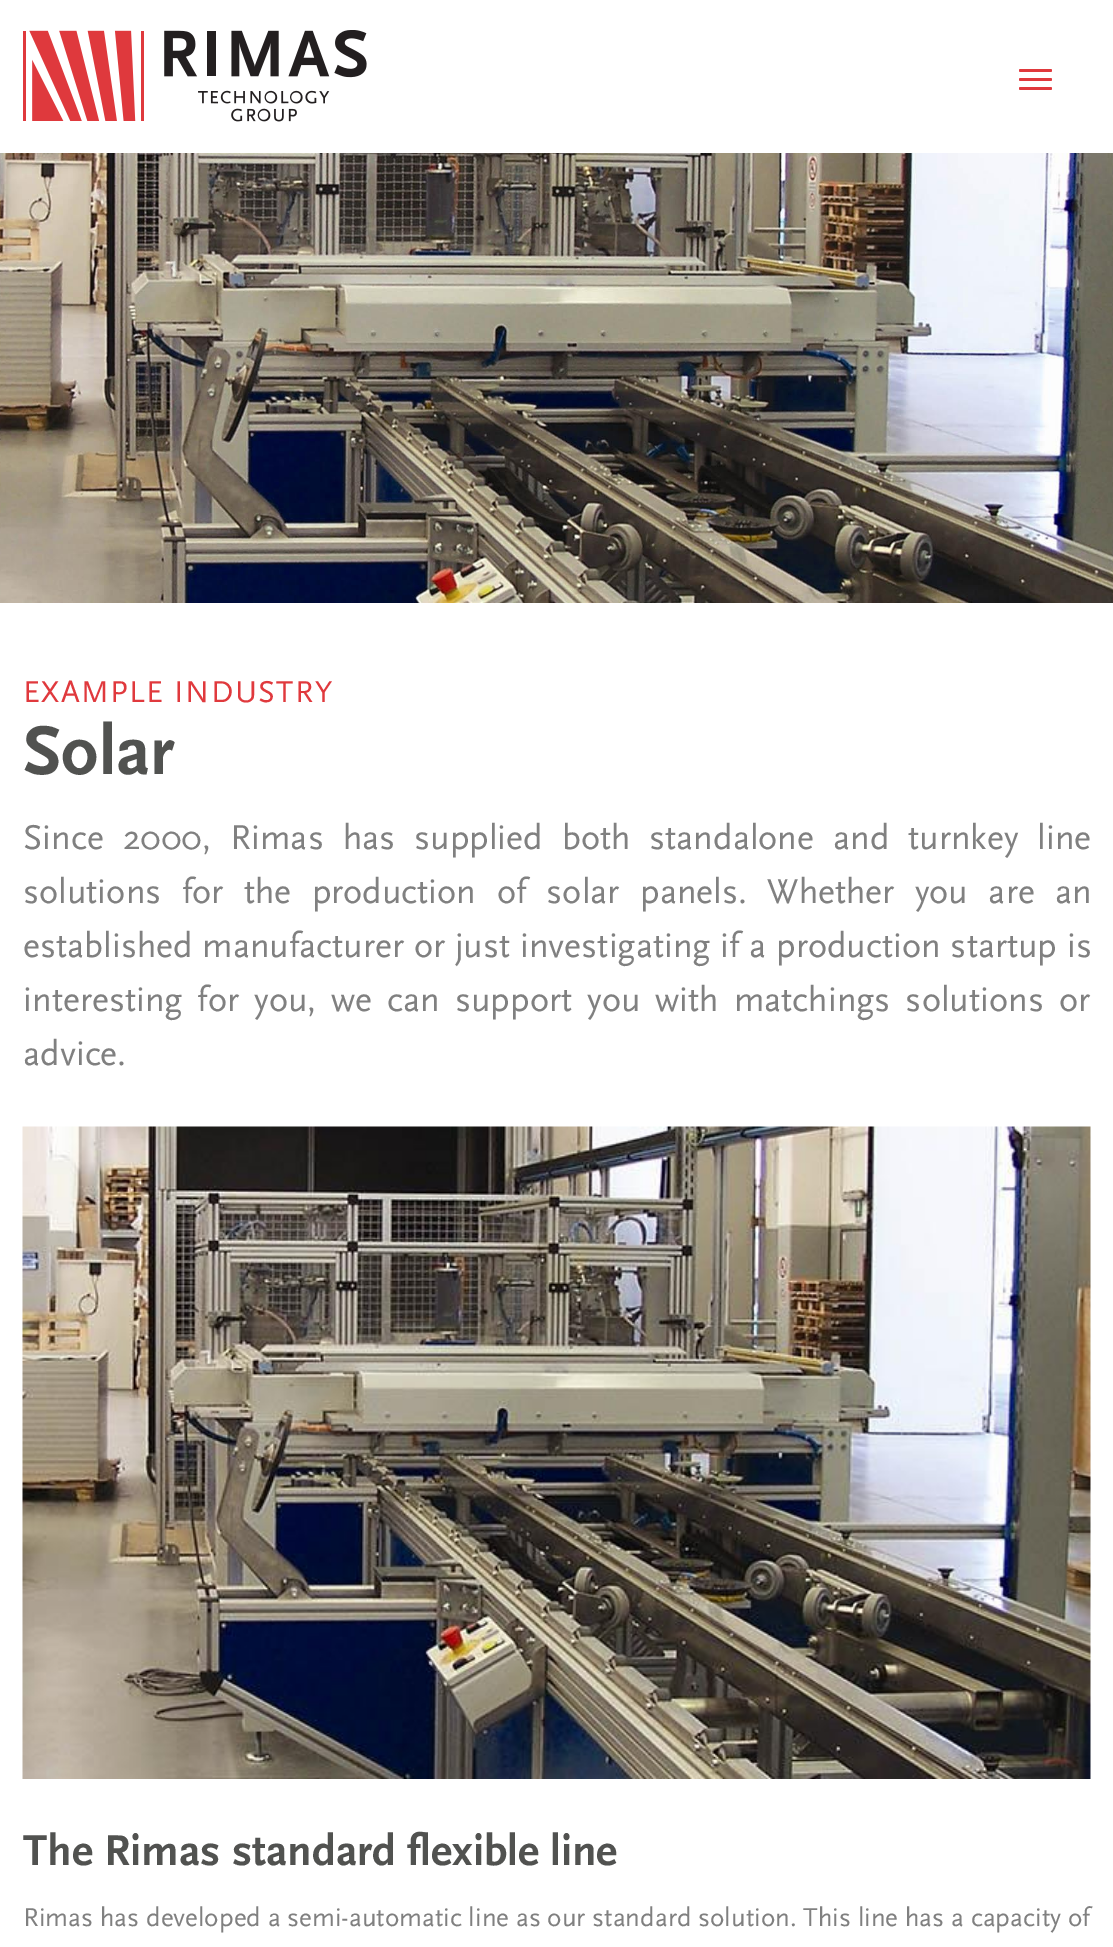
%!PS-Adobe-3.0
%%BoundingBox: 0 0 1113 1947
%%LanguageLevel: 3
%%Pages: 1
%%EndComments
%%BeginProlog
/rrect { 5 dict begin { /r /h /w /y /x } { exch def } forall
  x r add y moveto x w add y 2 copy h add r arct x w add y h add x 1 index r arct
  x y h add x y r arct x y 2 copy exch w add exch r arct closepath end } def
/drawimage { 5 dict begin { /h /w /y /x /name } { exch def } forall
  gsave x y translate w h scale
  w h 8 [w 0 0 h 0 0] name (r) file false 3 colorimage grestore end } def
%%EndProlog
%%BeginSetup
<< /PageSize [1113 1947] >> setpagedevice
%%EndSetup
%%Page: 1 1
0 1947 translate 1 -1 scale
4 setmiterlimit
1 setgray
0 0 1113 1947 rectfill
(images/1.raw) 23 30 344 92 drawimage
0.878 0.224 0.239 setrgbcolor
1019 69 33 3 1.5 rrect fill
1019 78 33 3 1.5 rrect fill
1019 87 33 3 1.5 rrect fill
(images/2.raw) 0 153 1113 450 drawimage
(images/3.raw) 22 1126 1069 653 drawimage
/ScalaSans-Regular [31.5 0 0 -31.5 0 0] selectfont
23 702 moveto 1.5 0 (EXAMPLE INDUSTRY) ashow
/ScalaSans-Bold [72 0 0 -72 0 0] selectfont
0.318 0.322 0.314 setrgbcolor
23 774 moveto (Solar) show
/ScalaSans-Regular [36 0 0 -36 0 0] selectfont
0.502 setgray
23 849 moveto 10 0 32 (Since 2000, Rimas has supplied both standalone and turnkey line) widthshow
23 903 moveto 11.5 0 32 (solutions for the production of solar panels. Whether you are an) widthshow
23 957 moveto 0.75 0 32 (established manufacturer or just investigating if a production startup is) widthshow
23 1011 moveto 6 0 32 (interesting for you, we can support you with matchings solutions or) widthshow
23 1065 moveto (advice.) show
/ScalaSans-Bold [45 0 0 -45 0 0] selectfont
0.318 0.322 0.314 setrgbcolor
23 1865 moveto (The Rimas standard flexible line) show
/ScalaSans-Regular [27 0 0 -27 0 0] selectfont
0.502 setgray
23 1926 moveto (Rimas has developed a semi-automatic line as our standard solution. This line has a capacity of) show
showpage
%%EOF
